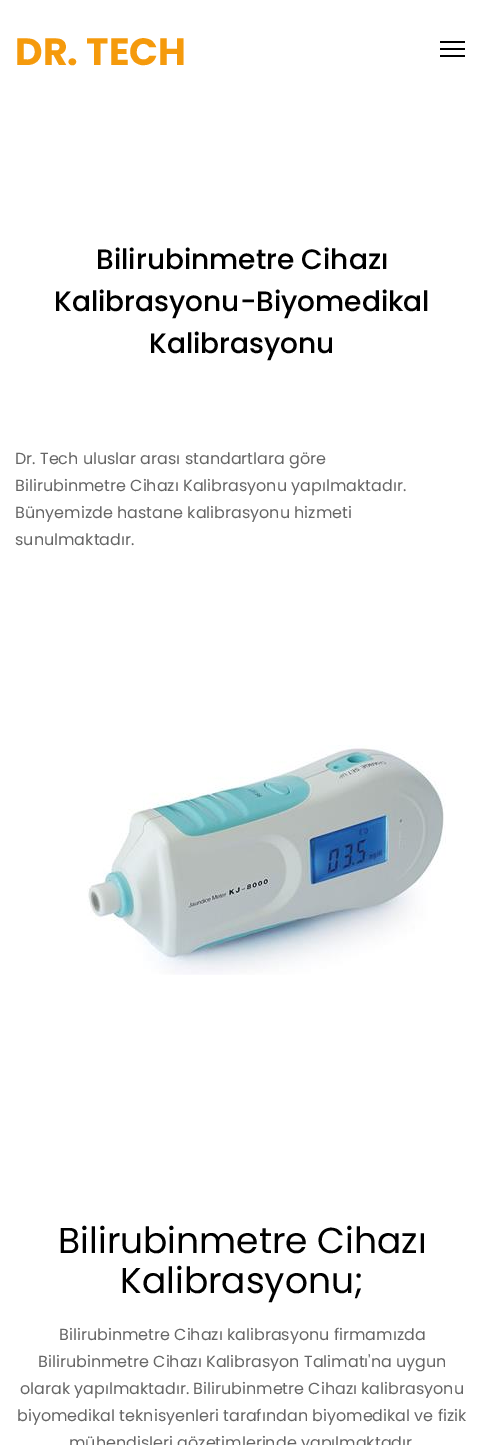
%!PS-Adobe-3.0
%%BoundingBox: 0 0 484 1445
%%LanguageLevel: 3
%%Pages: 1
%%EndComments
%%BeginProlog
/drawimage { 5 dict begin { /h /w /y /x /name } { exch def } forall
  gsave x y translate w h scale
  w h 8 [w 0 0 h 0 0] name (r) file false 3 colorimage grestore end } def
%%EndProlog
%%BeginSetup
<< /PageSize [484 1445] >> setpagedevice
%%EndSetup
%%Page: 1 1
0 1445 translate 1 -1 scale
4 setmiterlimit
1 setgray
0 0 484 1445 rectfill
0 setgray
440 48 25 2 rectfill
440 41 25 2 rectfill
440 55 25 2 rectfill
(images/1.raw) 87 745 359 230 drawimage
/Poppins-Bold [38 0 0 -38 0 0] selectfont
0.961 0.604 0.047 setrgbcolor
15 65 moveto (DR. TECH) show
/Poppins-Medium [28 0 0 -28 0 0] selectfont
0 setgray
96 269 moveto (Bilirubinmetre Cihazı) show
54 311 moveto (Kalibrasyonu-Biyomedikal) show
149 353 moveto (Kalibrasyonu) show
/Poppins-Regular [16 0 0 -16 0 0] selectfont
0.4 setgray
15 464 moveto (Dr. Tech uluslar arası standartlara göre) show
15 491 moveto (Bilirubinmetre Cihazı Kalibrasyonu yapılmaktadır.) show
15 518 moveto (Bünyemizde hastane kalibrasyonu hizmeti) show
15 545 moveto (sunulmaktadır.) show
/Poppins-Regular [36 0 0 -36 0 0] selectfont
0 setgray
58 1253 moveto (Bilirubinmetre Cihazı) show
120 1293 moveto (Kalibrasyonu;) show
/Poppins-Regular [16 0 0 -16 0 0] selectfont
0.4 setgray
59 1340 moveto (Bilirubinmetre Cihazı kalibrasyonu firmamızda) show
38 1367 moveto (Bilirubinmetre Cihazı Kalibrasyon Talimatı'na uygun) show
20 1394 moveto (olarak yapılmaktadır. Bilirubinmetre Cihazı kalibrasyonu) show
17 1421 moveto (biyomedikal teknisyenleri tarafından biyomedikal ve fizik) show
69 1448 moveto (mühendisleri gözetimlerinde yapılmaktadır) show
showpage
%%EOF
